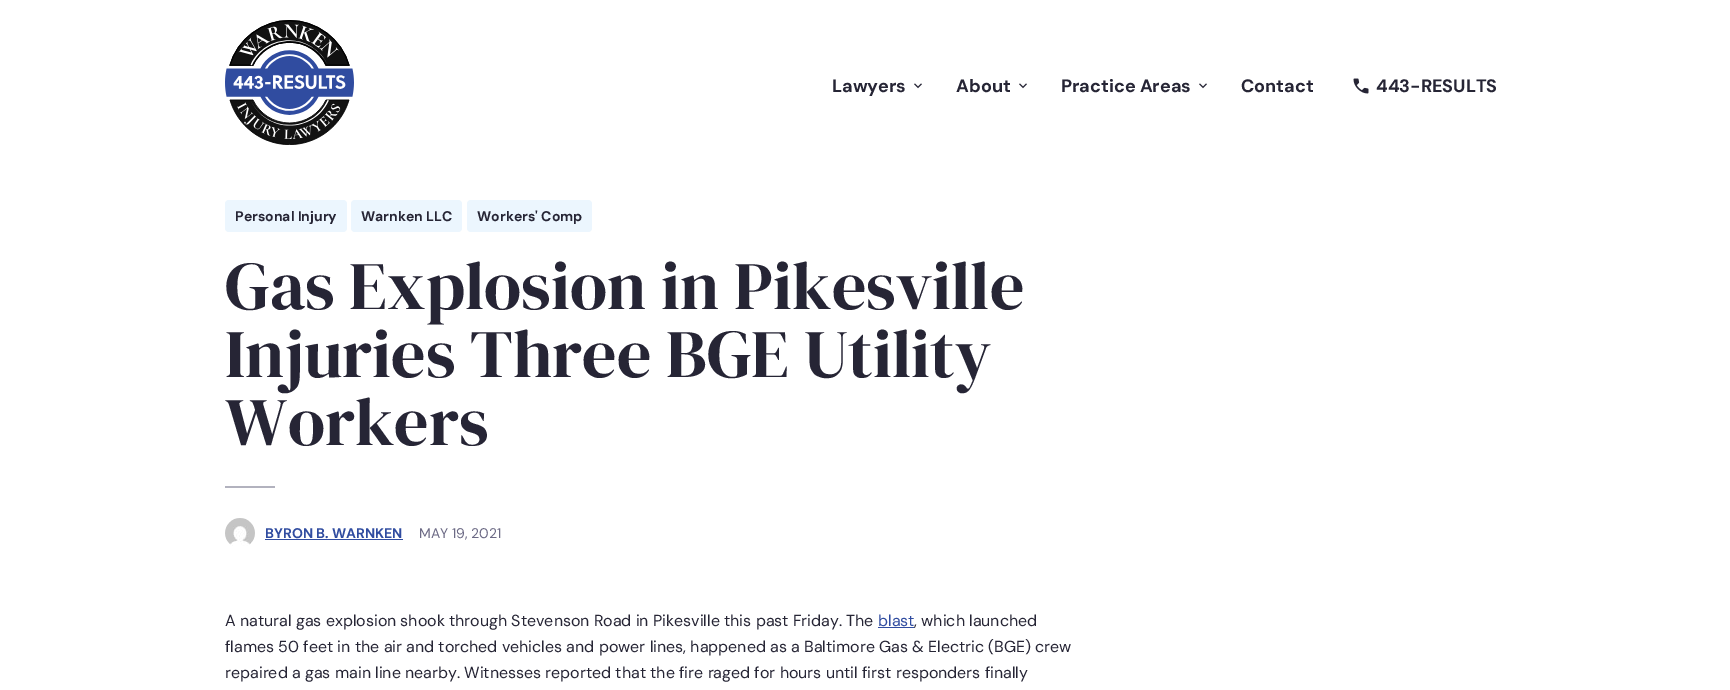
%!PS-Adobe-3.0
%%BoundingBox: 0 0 1730 690
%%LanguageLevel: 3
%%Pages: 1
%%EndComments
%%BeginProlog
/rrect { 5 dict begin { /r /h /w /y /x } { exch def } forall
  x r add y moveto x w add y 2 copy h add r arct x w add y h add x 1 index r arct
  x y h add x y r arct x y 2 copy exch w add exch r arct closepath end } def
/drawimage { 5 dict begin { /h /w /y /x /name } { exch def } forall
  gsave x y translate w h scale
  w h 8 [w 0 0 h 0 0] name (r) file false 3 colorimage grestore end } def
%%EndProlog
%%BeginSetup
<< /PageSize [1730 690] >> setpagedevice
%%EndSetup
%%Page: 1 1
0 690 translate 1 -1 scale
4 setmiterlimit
1 setgray
0 0 1730 690 rectfill
(images/1.raw) 225 20 129 125 drawimage
(images/2.raw) 914 83 8 6 drawimage
(images/2.raw) 1019 83 8 6 drawimage
(images/2.raw) 1199 83 8 6 drawimage
(images/3.raw) 1353 78 16 16 drawimage
0.925 0.965 0.996 setrgbcolor
225 200 122 32 4 rrect fill
351 200 111 32 4 rrect fill
467 200 125 32 4 rrect fill
0.698 0.698 0.745 setrgbcolor
225 486 50 2 rectfill
(images/4.raw) 225 518 30 28 drawimage
0.188 0.298 0.627 setrgbcolor
265 539 138 1 rectfill
878 627 36 1 rectfill
/DMSans-Bold [18 0 0 -18 0 0] selectfont
0.149 0.145 0.208 setrgbcolor
832 92 moveto (Lawyers) show
956 92 moveto (About) show
1061 92 moveto (Practice Areas) show
1241 92 moveto (Contact) show
1376 92 moveto (443-RESULTS) show
/DMSans-Bold [14 0 0 -14 0 0] selectfont
235 221 moveto (Personal Injury) show
361 221 moveto (Warnken LLC) show
477 221 moveto (Workers' Comp) show
/DMSerifDisplay-Regular [68 0 0 -68 0 0] selectfont
225 309 moveto (Gas Explosion in Pikesville) show
225 377 moveto (Injuries Three BGE Utility) show
225 445 moveto (Workers) show
/DMSans-Bold [14 0 0 -14 0 0] selectfont
0.188 0.298 0.627 setrgbcolor
265 538 moveto (BYRON B. WARNKEN) show
/DMSans-Regular [14 0 0 -14 0 0] selectfont
0.424 0.416 0.522 setrgbcolor
419 538 moveto (MAY 19, 2021) show
/DMSans-Regular [16 0 0 -16 0 0] selectfont
0.149 0.145 0.208 setrgbcolor
225 626 moveto (A natural gas explosion shook through Stevenson Road in Pikesville this past Friday. The) show
0.188 0.298 0.627 setrgbcolor
878 626 moveto (blast) show
0.149 0.145 0.208 setrgbcolor
914 626 moveto (, which launched) show
225 652 moveto (flames 50 feet in the air and torched vehicles and power lines, happened as a Baltimore Gas & Electric \(BGE\) crew) show
225 678 moveto (repaired a gas main line nearby. Witnesses reported that the fire raged for hours until first responders finally) show
showpage
%%EOF
